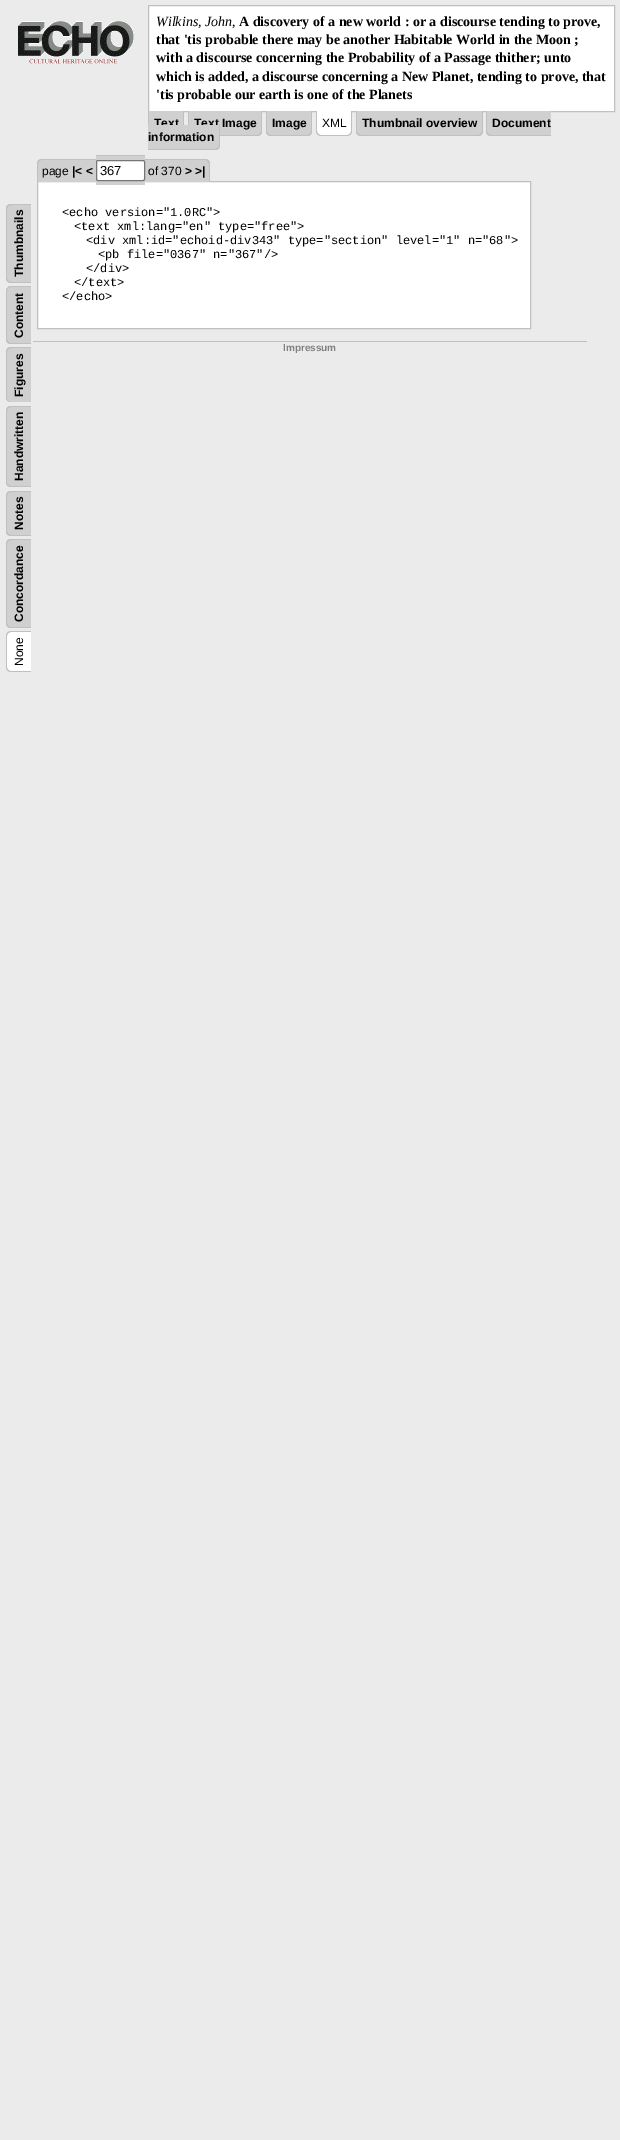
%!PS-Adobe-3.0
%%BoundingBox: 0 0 620 2140
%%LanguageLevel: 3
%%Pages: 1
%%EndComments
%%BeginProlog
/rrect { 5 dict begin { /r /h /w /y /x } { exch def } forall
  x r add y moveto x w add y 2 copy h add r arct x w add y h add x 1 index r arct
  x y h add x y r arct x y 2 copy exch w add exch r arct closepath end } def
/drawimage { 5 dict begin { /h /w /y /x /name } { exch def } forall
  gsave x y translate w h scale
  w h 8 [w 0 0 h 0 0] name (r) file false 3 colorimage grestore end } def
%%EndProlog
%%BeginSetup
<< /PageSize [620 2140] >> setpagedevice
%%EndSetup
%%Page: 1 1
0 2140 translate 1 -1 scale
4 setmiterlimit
0.922 setgray
0 0 620 2140 rectfill
(images/1.raw) 18 21 116 43 drawimage
1 setgray
newpath 148.5 5.5 moveto 614.5 5.5 lineto 614.5 111.5 lineto 148.5 111.5 lineto closepath gsave fill grestore
0.753 setgray
stroke
0.816 setgray
149 111 34 14 rectfill
0.753 setgray
newpath 148 111 moveto 184 111 lineto 184 131 lineto 184 134 182 136 179 136 curveto 153 136 lineto 150 136 148 134 148 131 curveto closepath 149 111 moveto 183 111 lineto 183 131 lineto 183 133 181 135 179 135 curveto 153 135 lineto 151 135 149 133 149 131 curveto closepath eofill
0.816 setgray
newpath 188 111 moveto 262 111 lineto 262 131 lineto 262 134 260 136 257 136 curveto 193 136 lineto 190 136 188 134 188 131 curveto closepath fill
0.753 setgray
newpath 188 111 moveto 262 111 lineto 262 131 lineto 262 134 260 136 257 136 curveto 193 136 lineto 190 136 188 134 188 131 curveto closepath 189 111 moveto 261 111 lineto 261 131 lineto 261 133 259 135 257 135 curveto 193 135 lineto 191 135 189 133 189 131 curveto closepath eofill
0.816 setgray
newpath 266 111 moveto 312 111 lineto 312 131 lineto 312 134 310 136 307 136 curveto 271 136 lineto 268 136 266 134 266 131 curveto closepath fill
0.753 setgray
newpath 266 111 moveto 312 111 lineto 312 131 lineto 312 134 310 136 307 136 curveto 271 136 lineto 268 136 266 134 266 131 curveto closepath 267 111 moveto 311 111 lineto 311 131 lineto 311 133 309 135 307 135 curveto 271 135 lineto 269 135 267 133 267 131 curveto closepath eofill
1 setgray
newpath 316 111 moveto 352 111 lineto 352 131 lineto 352 134 350 136 347 136 curveto 321 136 lineto 318 136 316 134 316 131 curveto closepath fill
0.753 setgray
newpath 316 111 moveto 352 111 lineto 352 131 lineto 352 134 350 136 347 136 curveto 321 136 lineto 318 136 316 134 316 131 curveto closepath 317 111 moveto 351 111 lineto 351 131 lineto 351 133 349 135 347 135 curveto 321 135 lineto 319 135 317 133 317 131 curveto closepath eofill
0.816 setgray
newpath 356 111 moveto 483 111 lineto 483 131 lineto 483 134 481 136 478 136 curveto 361 136 lineto 358 136 356 134 356 131 curveto closepath fill
0.753 setgray
newpath 356 111 moveto 483 111 lineto 483 131 lineto 483 134 481 136 478 136 curveto 361 136 lineto 358 136 356 134 356 131 curveto closepath 357 111 moveto 482 111 lineto 482 131 lineto 482 133 480 135 478 135 curveto 361 135 lineto 359 135 357 133 357 131 curveto closepath eofill
0.816 setgray
newpath 486 111 moveto 551 111 lineto 551 136 lineto 491 136 lineto 488 136 486 134 486 131 curveto closepath fill
0.753 setgray
newpath 486 111 moveto 551 111 lineto 551 136 lineto 491 136 lineto 488 136 486 134 486 131 curveto closepath 487 111 moveto 551 111 lineto 551 135 lineto 491 135 lineto 489 135 487 133 487 131 curveto closepath eofill
0.816 setgray
newpath 6 278 moveto 6 209 lineto 6 206 8 204 11 204 curveto 31 204 lineto 31 283 lineto 11 283 lineto 8 283 6 281 6 278 curveto closepath fill
0.753 setgray
newpath 6 278 moveto 6 209 lineto 6 206 8 204 11 204 curveto 31 204 lineto 31 283 lineto 11 283 lineto 8 283 6 281 6 278 curveto closepath 7 278 moveto 7 209 lineto 7 207 9 205 11 205 curveto 31 205 lineto 31 282 lineto 11 282 lineto 9 282 7 280 7 278 curveto closepath eofill
0.816 setgray
newpath 6 339 moveto 6 291 lineto 6 289 8 286 11 286 curveto 31 286 lineto 31 344 lineto 11 344 lineto 8 344 6 342 6 339 curveto closepath fill
0.753 setgray
newpath 6 339 moveto 6 291 lineto 6 289 8 286 11 286 curveto 31 286 lineto 31 344 lineto 11 344 lineto 8 344 6 342 6 339 curveto closepath 7 339 moveto 7 291 lineto 7 289 9 287 11 287 curveto 31 287 lineto 31 343 lineto 11 343 lineto 9 343 7 341 7 339 curveto closepath eofill
0.816 setgray
newpath 6 398 moveto 6 352 lineto 6 349 8 347 11 347 curveto 31 347 lineto 31 402 lineto 11 402 lineto 8 402 6 400 6 398 curveto closepath fill
0.753 setgray
newpath 6 398 moveto 6 352 lineto 6 349 8 347 11 347 curveto 31 347 lineto 31 402 lineto 11 402 lineto 8 402 6 400 6 398 curveto closepath 7 398 moveto 7 352 lineto 7 350 9 348 11 348 curveto 31 348 lineto 31 402 lineto 11 402 lineto 9 402 7 400 7 398 curveto closepath eofill
0.816 setgray
newpath 6 482 moveto 6 411 lineto 6 408 8 406 11 406 curveto 31 406 lineto 31 487 lineto 11 487 lineto 8 487 6 485 6 482 curveto closepath fill
0.753 setgray
newpath 6 482 moveto 6 411 lineto 6 408 8 406 11 406 curveto 31 406 lineto 31 487 lineto 11 487 lineto 8 487 6 485 6 482 curveto closepath 7 482 moveto 7 411 lineto 7 409 9 407 11 407 curveto 31 407 lineto 31 486 lineto 11 486 lineto 9 486 7 484 7 482 curveto closepath eofill
0.816 setgray
newpath 6 531 moveto 6 496 lineto 6 493 8 491 11 491 curveto 31 491 lineto 31 536 lineto 11 536 lineto 8 536 6 534 6 531 curveto closepath fill
0.753 setgray
newpath 6 531 moveto 6 496 lineto 6 493 8 491 11 491 curveto 31 491 lineto 31 536 lineto 11 536 lineto 8 536 6 534 6 531 curveto closepath 7 531 moveto 7 496 lineto 7 493 9 492 11 492 curveto 31 492 lineto 31 535 lineto 11 535 lineto 9 535 7 533 7 531 curveto closepath eofill
0.816 setgray
newpath 6 623 moveto 6 544 lineto 6 541 8 539 11 539 curveto 31 539 lineto 31 628 lineto 11 628 lineto 8 628 6 626 6 623 curveto closepath fill
0.753 setgray
newpath 6 623 moveto 6 544 lineto 6 541 8 539 11 539 curveto 31 539 lineto 31 628 lineto 11 628 lineto 8 628 6 626 6 623 curveto closepath 7 623 moveto 7 544 lineto 7 542 9 540 11 540 curveto 31 540 lineto 31 627 lineto 11 627 lineto 9 627 7 625 7 623 curveto closepath eofill
1 setgray
newpath 6 667 moveto 6 636 lineto 6 633 8 631 11 631 curveto 31 631 lineto 31 672 lineto 11 672 lineto 8 672 6 670 6 667 curveto closepath fill
0.753 setgray
newpath 6 667 moveto 6 636 lineto 6 633 8 631 11 631 curveto 31 631 lineto 31 672 lineto 11 672 lineto 8 672 6 670 6 667 curveto closepath 7 667 moveto 7 636 lineto 7 634 9 632 11 632 curveto 31 632 lineto 31 671 lineto 11 671 lineto 9 671 7 669 7 667 curveto closepath eofill
1 setgray
newpath 37.5 181.5 moveto 530.5 181.5 lineto 530.5 328.5 lineto 37.5 328.5 lineto closepath gsave fill grestore
0.753 setgray
stroke
0.816 setgray
newpath 42 159 moveto 72 159 lineto 72 182 lineto 37 182 lineto 37 164 lineto 37 161 39 159 42 159 curveto closepath fill
0.753 setgray
newpath 42 159 moveto 72 159 lineto 72 182 lineto 37 182 lineto 37 164 lineto 37 161 39 159 42 159 curveto closepath 42 160 moveto 72 160 lineto 72 182 lineto 38 182 lineto 38 164 lineto 38 162 40 160 42 160 curveto closepath eofill
0.816 setgray
72 160 10 22 rectfill
0.753 setgray
72 159 10 1 rectfill
0.816 setgray
82 159 14 23 rectfill
0.753 setgray
82 159 14 1 rectfill
0.816 setgray
96 156 49 29 rectfill
0.753 setgray
96 155 49 1 rectfill
0.816 setgray
145 159 3 23 rectfill
0.753 setgray
145 159 40 1 rectfill
0.816 setgray
148 160 37 22 rectfill
185 159 10 23 rectfill
0.753 setgray
185 159 10 1 rectfill
0.816 setgray
newpath 195 159 moveto 205 159 lineto 208 159 210 161 210 164 curveto 210 182 lineto 195 182 lineto closepath fill
0.753 setgray
newpath 195 159 moveto 205 159 lineto 208 159 210 161 210 164 curveto 210 182 lineto 195 182 lineto closepath 195 160 moveto 205 160 lineto 207 160 209 162 209 164 curveto 209 182 lineto 195 182 lineto closepath eofill
1 setgray
96.5 160.5 48 20 1.5 rrect gsave fill grestore
0.463 setgray
stroke
0.753 setgray
33 341 554 1 rectfill
/LiberationSerif-Italic [14 0 0 -14 0 0] selectfont
0 setgray
156 26 moveto (Wilkins, John) show
/LiberationSerif-Regular [14 0 0 -14 0 0] selectfont
232 26 moveto (,) show
/LiberationSerif-Bold [14 0 0 -14 0 0] selectfont
239 26 moveto (A discovery of a new world : or a discourse tending to prove,) show
156 44 moveto (that 'tis probable there may be another Habitable World in the Moon ;) show
156 62 moveto (with a discourse concerning the Probability of a Passage thither; unto) show
156 81 moveto (which is added, a discourse concerning a New Planet, tending to prove, that) show
156 99 moveto ('tis probable our earth is one of the Planets) show
/LiberationSans-Bold [12 0 0 -12 0 0] selectfont
154 127 moveto (Text) show
194 127 moveto (Text Image) show
272 127 moveto (Image) show
/LiberationSans-Regular [12 0 0 -12 0 0] selectfont
322 127 moveto (XML) show
/LiberationSans-Bold [12 0 0 -12 0 0] selectfont
362 127 moveto (Thumbnail overview) show
492 127 moveto (Document) show
0.816 setgray
newpath 148 125 moveto 220 125 lineto 220 145 lineto 220 148 218 150 215 150 curveto 148 150 lineto closepath fill
0.753 setgray
newpath 148 125 moveto 220 125 lineto 220 145 lineto 220 148 218 150 215 150 curveto 148 150 lineto closepath 148 125 moveto 219 125 lineto 219 145 lineto 219 147 217 149 215 149 curveto 148 149 lineto closepath eofill
0 setgray
148 141 moveto (information) show
gsave 23 277 translate -90 rotate 0 0 moveto (Thumbnails) show grestore
gsave 23 338 translate -90 rotate 0 0 moveto (Content) show grestore
gsave 23 397 translate -90 rotate 0 0 moveto (Figures) show grestore
gsave 23 481 translate -90 rotate 0 0 moveto (Handwritten) show grestore
gsave 23 530 translate -90 rotate 0 0 moveto (Notes) show grestore
gsave 23 622 translate -90 rotate 0 0 moveto (Concordance) show grestore
/LiberationSans-Regular [12 0 0 -12 0 0] selectfont
gsave 23 666 translate -90 rotate 0 0 moveto (None) show grestore
42 175 moveto (page) show
/LiberationSans-Bold [12 0 0 -12 0 0] selectfont
72 175 moveto (|< <) show
/LiberationSans-Regular [13 0 0 -13 0 0] selectfont
100 175 moveto (367) show
/LiberationSans-Regular [12 0 0 -12 0 0] selectfont
148 175 moveto (of 370) show
/LiberationSans-Bold [12 0 0 -12 0 0] selectfont
185 175 moveto (> >|) show
/LiberationMono-Regular [12 0 0 -12 0 0] selectfont
62 216 moveto (<echo version="1.0RC">) show
74 230 moveto (<text xml:lang="en" type="free">) show
86 244 moveto (<div xml:id="echoid-div343" type="section" level="1" n="68">) show
98 258 moveto (<pb file="0367" n="367"/>) show
86 272 moveto (</div>) show
74 286 moveto (</text>) show
62 300 moveto (</echo>) show
/LiberationSans-Bold [10 0 0 -10 0 0] selectfont
0.502 setgray
283 351 moveto (Impressum) show
showpage
%%EOF
